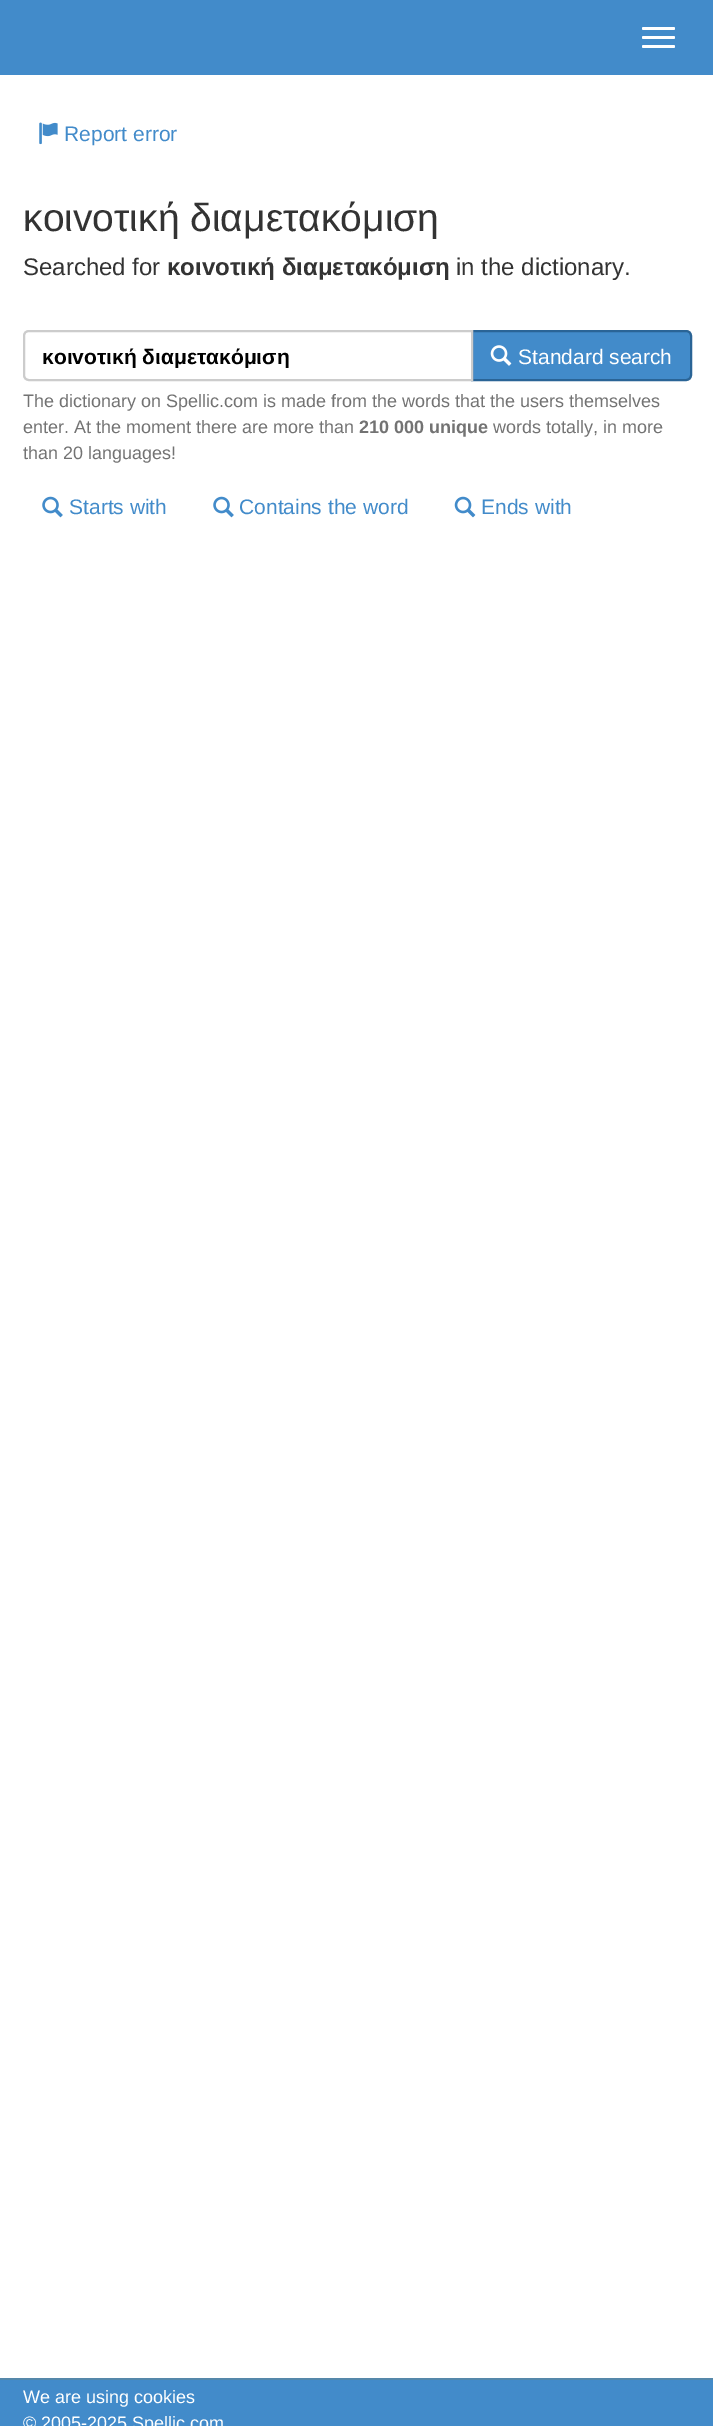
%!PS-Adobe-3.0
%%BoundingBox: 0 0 713 2426
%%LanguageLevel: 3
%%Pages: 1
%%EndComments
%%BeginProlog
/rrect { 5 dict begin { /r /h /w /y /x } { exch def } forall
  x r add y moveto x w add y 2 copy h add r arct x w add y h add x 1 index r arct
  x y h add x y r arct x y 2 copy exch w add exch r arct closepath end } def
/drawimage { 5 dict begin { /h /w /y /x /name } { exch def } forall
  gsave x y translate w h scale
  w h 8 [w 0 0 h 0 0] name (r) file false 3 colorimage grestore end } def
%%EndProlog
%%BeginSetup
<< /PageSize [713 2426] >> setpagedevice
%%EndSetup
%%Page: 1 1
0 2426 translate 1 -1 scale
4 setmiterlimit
1 setgray
0 0 713 2426 rectfill
0.259 0.545 0.792 setrgbcolor
0 0 713 75 rectfill
1 setgray
642 27 33 3 1.5 rrect fill
642 36 33 3 1.5 rrect fill
642 45 33 3 1.5 rrect fill
(images/1.raw) 39 122 19 23 drawimage
0.259 0.545 0.792 setrgbcolor
newpath 472 331 moveto 686 331 lineto 689 331 691 333 691 336 curveto 691 375 lineto 691 378 689 380 686 380 curveto 472 380 lineto closepath gsave fill grestore
0.165 0.392 0.588 setrgbcolor
2 setlinewidth
stroke
1 setgray
newpath 29 331 moveto 472 331 lineto 472 380 lineto 29 380 lineto 26 380 24 378 24 375 curveto 24 336 lineto 24 333 26 331 29 331 curveto closepath gsave fill grestore
0.8 setgray
stroke
(images/2.raw) 490 345 22 21 drawimage
(images/3.raw) 42 496 21 22 drawimage
(images/3.raw) 213 496 21 22 drawimage
(images/4.raw) 454 496 22 22 drawimage
0.259 0.545 0.792 setrgbcolor
0 2380 713 46 rectfill
0.333 0.533 0.667 setrgbcolor
0 2378 713 2 rectfill
/LiberationSans-Regular [21 0 0 -21 0 0] selectfont
0.259 0.545 0.792 setrgbcolor
64 141 moveto (Report error) show
/LiberationSans-Regular [39 0 0 -39 0 0] selectfont
0.2 setgray
23 231 moveto (κoιvoτική διαμετακόμιση) show
/LiberationSans-Regular [24 0 0 -24 0 0] selectfont
23 275 moveto (Searched for) show
/LiberationSans-Bold [24 0 0 -24 0 0] selectfont
167 275 moveto (κoιvoτική διαμετακόμιση) show
/LiberationSans-Regular [24 0 0 -24 0 0] selectfont
456 275 moveto (in the dictionary.) show
gsave
42 344 411 24 rectclip
/LiberationSans-Bold [21 0 0 -21 0 0] selectfont
0 setgray
42 364 moveto (κoιvoτική διαμετακόμιση) show
grestore
/LiberationSans-Regular [21 0 0 -21 0 0] selectfont
1 setgray
518 364 moveto (Standard search) show
/LiberationSans-Regular [18 0 0 -18 0 0] selectfont
0.451 setgray
23 407 moveto (The dictionary on Spellic.com is made from the words that the users themselves) show
23 433 moveto (enter. At the moment there are more than) show
/LiberationSans-Bold [18 0 0 -18 0 0] selectfont
359 433 moveto (210 000 unique) show
/LiberationSans-Regular [18 0 0 -18 0 0] selectfont
493 433 moveto (words totally, in more) show
23 459 moveto (than 20 languages!) show
/LiberationSans-Regular [21 0 0 -21 0 0] selectfont
0.259 0.545 0.792 setrgbcolor
69 514 moveto (Starts with) show
239 514 moveto (Contains the word) show
481 514 moveto (Ends with) show
/LiberationSans-Regular [18 0 0 -18 0 0] selectfont
1 setgray
23 2403 moveto (We are using cookies) show
23 2429 moveto (© 2005-2025 Spellic.com) show
showpage
%%EOF
